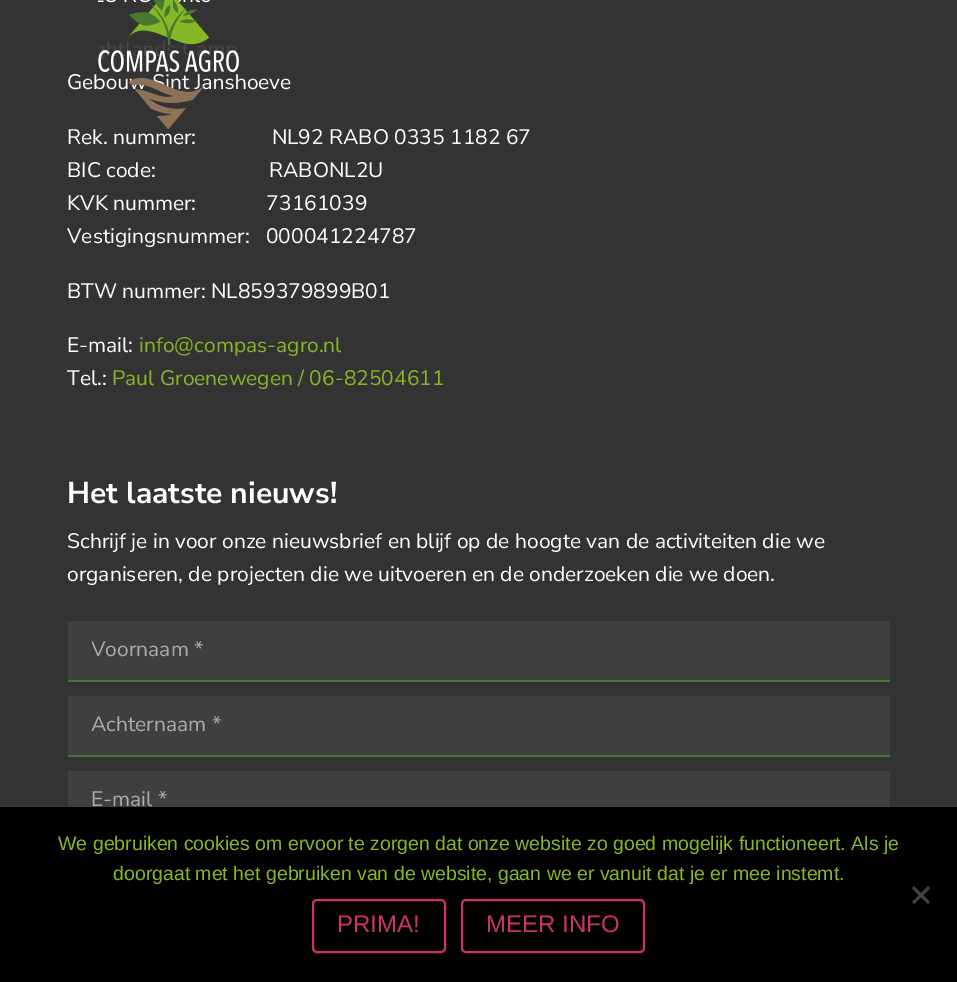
%!PS-Adobe-3.0
%%BoundingBox: 0 0 957 982
%%LanguageLevel: 3
%%Pages: 1
%%EndComments
%%BeginProlog
/rrect { 5 dict begin { /r /h /w /y /x } { exch def } forall
  x r add y moveto x w add y 2 copy h add r arct x w add y h add x 1 index r arct
  x y h add x y r arct x y 2 copy exch w add exch r arct closepath end } def
/drawimage { 5 dict begin { /h /w /y /x /name } { exch def } forall
  gsave x y translate w h scale
  w h 8 [w 0 0 h 0 0] name (r) file false 3 colorimage grestore end } def
%%EndProlog
%%BeginSetup
<< /PageSize [957 982] >> setpagedevice
%%EndSetup
%%Page: 1 1
0 982 translate 1 -1 scale
4 setmiterlimit
0.204 0.2 0.2 setrgbcolor
0 0 957 982 rectfill
0.251 0.247 0.247 setrgbcolor
68 621 822 59 rectfill
0.275 0.467 0.18 setrgbcolor
68 680 822 2 rectfill
0.251 0.247 0.247 setrgbcolor
68 696 822 59 rectfill
0.275 0.467 0.18 setrgbcolor
68 755 822 2 rectfill
0.251 0.247 0.247 setrgbcolor
68 771 822 36 rectfill
0 setgray
0 807 957 175 rectfill
0.251 setgray
newpath 928 886 moveto 930 888.5 lineto 914 904 lineto 912 902 lineto closepath fill
newpath 912 888.5 moveto 914 886 lineto 930 902 lineto 928 904 lineto closepath fill
0.8 0.2 0.4 setrgbcolor
2 setlinewidth
313 900 132 52 4 rrect stroke
462 900 182 52 4 rrect stroke
/NunitoSans-Regular [21 0 0 -21 0 0] selectfont
1 setgray
67 89 moveto (Gebou) show
170 89 moveto (nt Janshoeve) show
67 144 moveto (Rek. nummer:              NL92 RABO 0335 1182 67) show
(images/1.raw) 98 0 141 130 drawimage
67 177 moveto (BIC code:                     RABONL2U) show
67 210 moveto (KVK nummer:             73161039) show
67 243 moveto (Vestigingsnummer:   000041224787) show
67 298 moveto (BTW nummer: NL859379899B01) show
67 352 moveto (E-mail:) show
0.529 0.718 0.149 setrgbcolor
139 352 moveto (info@compas-agro.nl) show
1 setgray
67 385 moveto (Tel.:) show
0.529 0.718 0.149 setrgbcolor
112 385 moveto (Paul Groenewegen / 06-82504611) show
/NunitoSans-Bold [30 0 0 -30 0 0] selectfont
1 setgray
67 503 moveto (Het laatste nieuws!) show
/NunitoSans-Regular [21 0 0 -21 0 0] selectfont
67 548 moveto (Schrijf je in voor onze nieuwsbrief en blijf op de hoogte van de activiteiten die we) show
67 581 moveto (organiseren, de projecten die we uitvoeren en de onderzoeken die we doen.) show
gsave
92 636 774 29 rectclip
0.678 0.675 0.675 setrgbcolor
91 656 moveto (Voornaam *) show
grestore
0.678 0.675 0.675 setrgbcolor
91 731 moveto (Achternaam *) show
91 806 moveto (E-mail *) show
/LiberationSans-Regular [19.5 0 0 -19.5 0 0] selectfont
0.529 0.718 0.149 setrgbcolor
58 850 moveto (We gebruiken cookies om ervoor te zorgen dat onze website zo goed mogelijk functioneert. Als je) show
113 880 moveto (doorgaat met het gebruiken van de website, gaan we er vanuit dat je er mee instemt.) show
/LiberationSans-Regular [24 0 0 -24 0 0] selectfont
0.8 0.2 0.4 setrgbcolor
337 932 moveto (PRIMA!) show
486 932 moveto (MEER INFO) show
showpage
%%EOF
